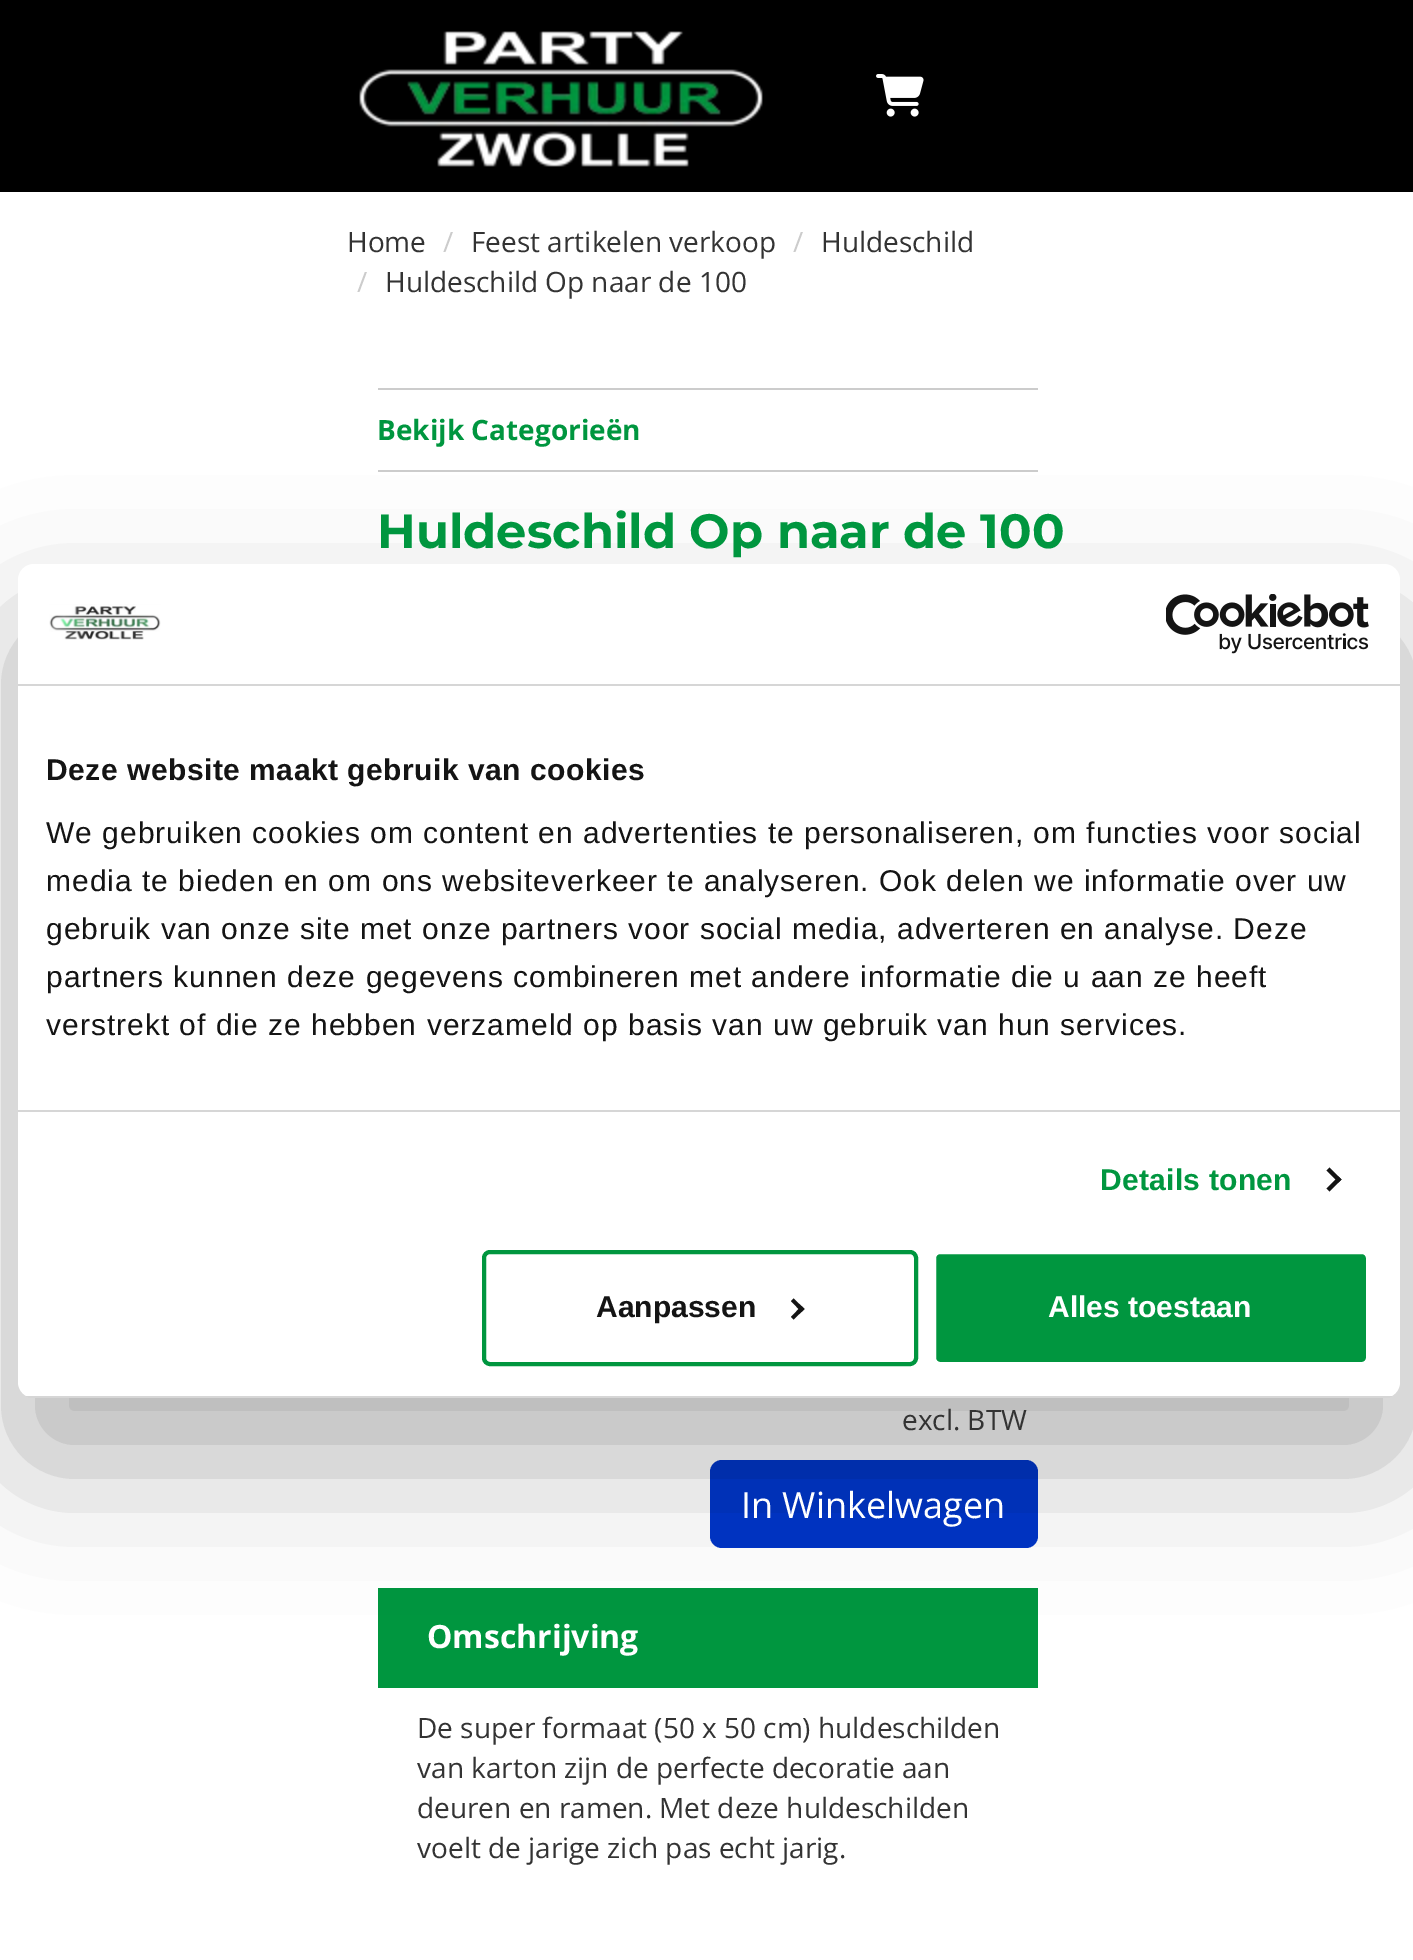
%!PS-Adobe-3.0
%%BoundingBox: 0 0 1413 1960
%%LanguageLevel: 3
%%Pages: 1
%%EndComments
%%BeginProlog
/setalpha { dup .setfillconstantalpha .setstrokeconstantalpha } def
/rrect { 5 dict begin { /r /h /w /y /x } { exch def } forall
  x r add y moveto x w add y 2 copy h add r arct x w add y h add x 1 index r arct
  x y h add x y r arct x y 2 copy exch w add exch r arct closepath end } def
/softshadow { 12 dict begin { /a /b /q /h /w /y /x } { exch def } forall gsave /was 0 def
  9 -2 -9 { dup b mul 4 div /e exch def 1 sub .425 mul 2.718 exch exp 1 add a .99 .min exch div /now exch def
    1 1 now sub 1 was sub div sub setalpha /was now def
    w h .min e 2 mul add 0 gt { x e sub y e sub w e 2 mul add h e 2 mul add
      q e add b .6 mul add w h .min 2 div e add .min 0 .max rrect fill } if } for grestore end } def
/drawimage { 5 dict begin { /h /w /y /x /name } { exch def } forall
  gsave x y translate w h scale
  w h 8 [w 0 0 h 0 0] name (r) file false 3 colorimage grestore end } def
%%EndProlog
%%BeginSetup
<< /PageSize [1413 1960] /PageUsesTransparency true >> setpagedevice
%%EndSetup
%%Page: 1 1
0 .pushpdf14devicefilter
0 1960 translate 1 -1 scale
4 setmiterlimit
1 setgray
0 0 1413 1960 rectfill
0 setgray
0 0 1413 192 rectfill
(images/1.raw) 359 31 404 136 drawimage
(images/2.raw) 876 74 48 43 drawimage
0.8 setgray
378 388 660 2 rectfill
378 470 660 2 rectfill
0 0.208 0.788 setrgbcolor
710 1460 328 88 12 rrect fill
0 0.588 0.247 setrgbcolor
378 1588 660 100 rectfill
0 setgray
18 628 1382 834 16 68 0.3 softshadow
1 setgray
18 564 1382 834 16 rrect fill
0.839 setgray
18 684 1382 2 rectfill
(images/3.raw) 49 604 112 36 drawimage
(images/4.raw) 1166 594 203 60 drawimage
18 1110 1382 2 rectfill
0.078 setgray
newpath 1329.5 1167.5 moveto 1341.5 1179.5 lineto 1338.5 1182.5 lineto 1326.5 1170.5 lineto closepath fill
newpath 1338.5 1176.5 moveto 1341.5 1179.5 lineto 1329.5 1191.5 lineto 1326.5 1188.5 lineto closepath fill
gsave
18 564 1382 834 16 rrect clip newpath
0.839 setgray
18 1396 1382 2 rectfill
grestore
0 0.588 0.247 setrgbcolor
4 setlinewidth
484 1252 432 112 6 rrect stroke
0.078 setgray
newpath 793.5 1298.5 moveto 804.5 1309 lineto 801.5 1312 lineto 791 1301 lineto closepath fill
newpath 801.5 1306 moveto 804.5 1309 lineto 793.5 1319.5 lineto 791 1317 lineto closepath fill
0 0.588 0.247 setrgbcolor
934 1252 434 112 6 rrect gsave fill grestore
1 setgray
stroke
/OpenSans-Regular [28 0 0 -28 0 0] selectfont
0.2 setgray
347 252 moveto (Home) show
0.8 setgray
443 252 moveto (/) show
0.2 setgray
471 252 moveto (Feest artikelen verkoop) show
0.8 setgray
793 252 moveto (/) show
0.2 setgray
821 252 moveto (Huldeschild) show
0.8 setgray
357 292 moveto (/) show
0.2 setgray
385 292 moveto (Huldeschild Op naar de 100) show
/OpenSans-Bold [28 0 0 -28 0 0] selectfont
0 0.588 0.247 setrgbcolor
377 440 moveto (Bekijk Categorieën) show
/Montserrat-Bold [48 0 0 -48 0 0] selectfont
377 548 moveto (Huldeschild Op naar de 100) show
/OpenSans-Regular [28 0 0 -28 0 0] selectfont
0.2 setgray
902 1430 moveto (excl. BTW) show
/OpenSans-Regular [36 0 0 -36 0 0] selectfont
1 setgray
741 1518 moveto (In Winkelwagen) show
/OpenSans-Bold [32 0 0 -32 0 0] selectfont
427 1648 moveto (Omschrijving) show
/OpenSans-Regular [28 0 0 -28 0 0] selectfont
0.2 setgray
417 1738 moveto (De super formaat \(50 x 50 cm\) huldeschilden) show
417 1778 moveto (van karton zijn de perfecte decoratie aan) show
417 1818 moveto (deuren en ramen. Met deze huldeschilden) show
417 1858 moveto (voelt de jarige zich pas echt jarig.) show
/LiberationSans-Bold [30 0 0 -30 0 0] selectfont
0.078 setgray
46 780 moveto 0.5 0 (Deze website maakt gebruik van cookies) ashow
/LiberationSans-Regular [30 0 0 -30 0 0] selectfont
46 843 moveto 1 0 (We gebruiken cookies om content en advertenties te personaliseren, om functies voor social) ashow
46 891 moveto 1 0 (media te bieden en om ons websiteverkeer te analyseren. Ook delen we informatie over uw) ashow
46 939 moveto 1 0 (gebruik van onze site met onze partners voor social media, adverteren en analyse. Deze) ashow
46 987 moveto 1 0 (partners kunnen deze gegevens combineren met andere informatie die u aan ze heeft) ashow
46 1035 moveto 1 0 (verstrekt of die ze hebben verzameld op basis van uw gebruik van hun services.) ashow
/LiberationSans-Bold [30 0 0 -30 0 0] selectfont
0 0.588 0.247 setrgbcolor
1100 1190 moveto 0.25 0 (Details tonen) ashow
0.078 setgray
596 1317 moveto (Aanpassen) show
1 setgray
1048 1317 moveto (Alles toestaan) show
.poppdf14devicefilter showpage
%%EOF
